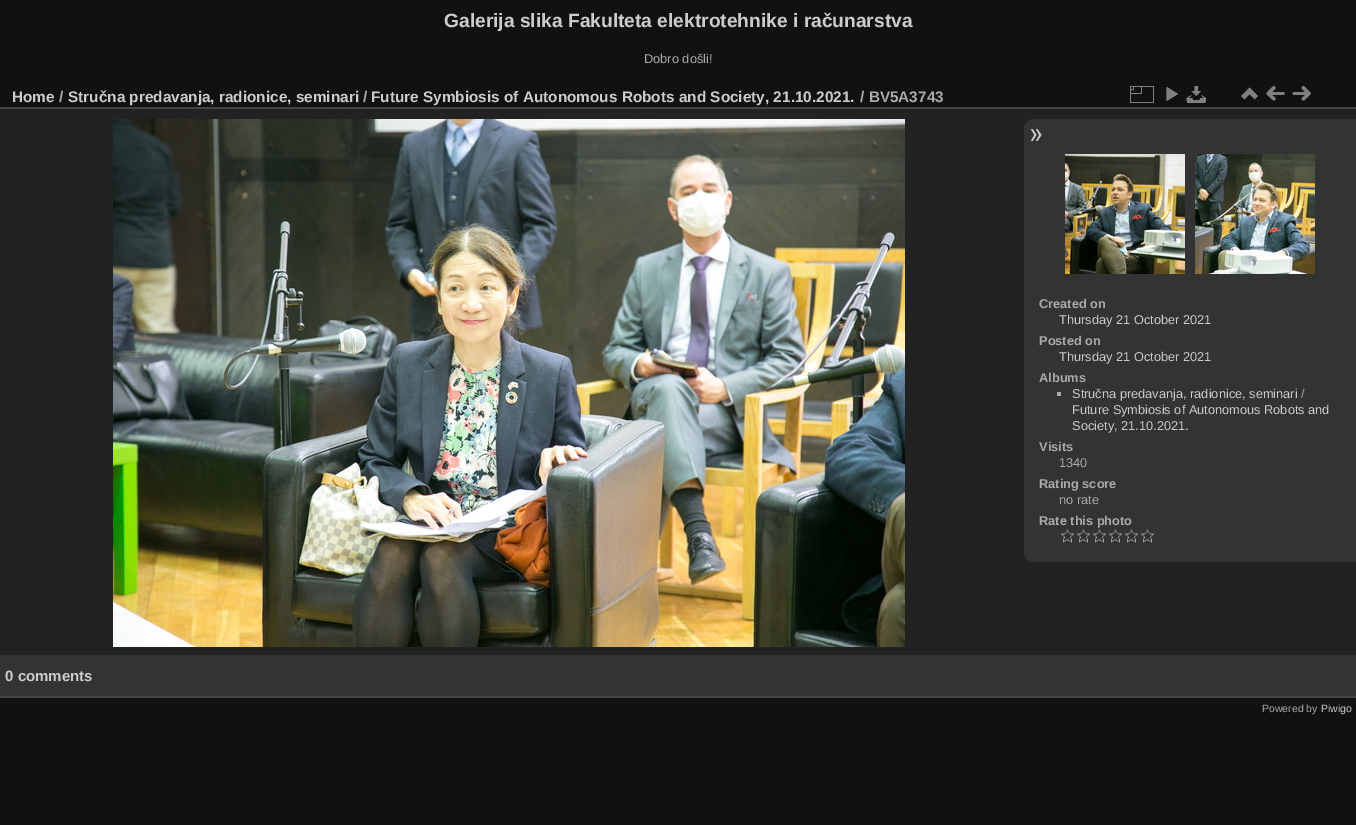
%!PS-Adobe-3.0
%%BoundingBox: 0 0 1356 825
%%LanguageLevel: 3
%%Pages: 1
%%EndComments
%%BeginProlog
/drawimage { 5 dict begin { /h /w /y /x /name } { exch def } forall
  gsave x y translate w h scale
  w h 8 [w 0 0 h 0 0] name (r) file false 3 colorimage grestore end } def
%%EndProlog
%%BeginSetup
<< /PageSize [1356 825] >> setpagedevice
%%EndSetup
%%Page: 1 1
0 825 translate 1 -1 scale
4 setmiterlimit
0.067 setgray
0 0 1356 825 rectfill
0.133 setgray
0 109 1356 546 rectfill
0.267 setgray
0 696 1356 2 rectfill
0 107 1356 2 rectfill
(images/1.raw) 1130 86 24 17 drawimage
(images/2.raw) 1166 87 12 14 drawimage
(images/3.raw) 1186 86 21 17 drawimage
(images/4.raw) 1241 87 17 13 drawimage
(images/5.raw) 1266 86 19 15 drawimage
(images/6.raw) 1292 86 19 15 drawimage
(images/7.raw) 113 119 792 528 drawimage
0.2 setgray
newpath 1034 119 moveto 1356 119 lineto 1356 562 lineto 1034 562 lineto 1028.5 562 1024 557.5 1024 552 curveto 1024 129 lineto 1024 123.5 1028.5 119 1034 119 curveto closepath fill
(images/8.raw) 1030 129 12 12 drawimage
(images/9.raw) 1065 154 120 120 drawimage
(images/10.raw) 1195 154 120 120 drawimage
0.667 setgray
1057 392 4 4 rectfill
(images/11.raw) 1061 529 13 14 drawimage
(images/11.raw) 1077 529 13 14 drawimage
(images/11.raw) 1093 529 13 14 drawimage
(images/11.raw) 1109 529 13 14 drawimage
(images/11.raw) 1125 529 13 14 drawimage
(images/11.raw) 1141 529 13 14 drawimage
0.2 setgray
0 655 1356 41 rectfill
/LiberationSans-Bold [19.2 0 0 -19.2 0 0] selectfont
0.8 setgray
444 27 moveto (Galerija slika Fakulteta elektrotehnike i računarstva) show
/LiberationSans-Regular [12.8 0 0 -12.8 0 0] selectfont
0.667 setgray
644 63 moveto (Dobro došli!) show
/LiberationSans-Bold [15.35 0 0 -15.35 0 0] selectfont
0.8 setgray
12 102 moveto (Home) show
0.667 setgray
59 102 moveto (/) show
0.8 setgray
68 102 moveto (Stručna predavanja, radionice, seminari) show
0.667 setgray
363 102 moveto (/) show
0.8 setgray
371 102 moveto (Future Symbiosis of Autonomous Robots and Society, 21.10.2021.) show
0.667 setgray
860 102 moveto (/ BV5A3743) show
/LiberationSans-Bold [12.8 0 0 -12.8 0 0] selectfont
1039 308 moveto (Created on) show
/LiberationSans-Regular [12.8 0 0 -12.8 0 0] selectfont
0.8 setgray
1059 324 moveto (Thursday 21 October 2021) show
/LiberationSans-Bold [12.8 0 0 -12.8 0 0] selectfont
0.667 setgray
1039 345 moveto (Posted on) show
/LiberationSans-Regular [12.8 0 0 -12.8 0 0] selectfont
0.8 setgray
1059 361 moveto (Thursday 21 October 2021) show
/LiberationSans-Bold [12.8 0 0 -12.8 0 0] selectfont
0.667 setgray
1039 382 moveto (Albums) show
/LiberationSans-Regular [12.8 0 0 -12.8 0 0] selectfont
0.8 setgray
1072 398 moveto (Stručna predavanja, radionice, seminari) show
0.667 setgray
1301 398 moveto (/) show
0.8 setgray
1072 414 moveto (Future Symbiosis of Autonomous Robots and) show
1072 430 moveto (Society, 21.10.2021.) show
/LiberationSans-Bold [12.8 0 0 -12.8 0 0] selectfont
0.667 setgray
1039 451 moveto (Visits) show
/LiberationSans-Regular [12.8 0 0 -12.8 0 0] selectfont
1059 467 moveto (1340) show
/LiberationSans-Bold [12.8 0 0 -12.8 0 0] selectfont
1039 488 moveto (Rating score) show
/LiberationSans-Regular [12.8 0 0 -12.8 0 0] selectfont
1059 504 moveto (no rate) show
/LiberationSans-Bold [12.8 0 0 -12.8 0 0] selectfont
1039 525 moveto (Rate this photo) show
/LiberationSans-Bold [15 0 0 -15 0 0] selectfont
0.8 setgray
5 681 moveto (0 comments) show
/LiberationSans-Regular [10.5 0 0 -10.5 0 0] selectfont
0.667 setgray
1262 712 moveto (Powered by) show
0.8 setgray
1321 712 moveto (Piwigo) show
showpage
%%EOF
